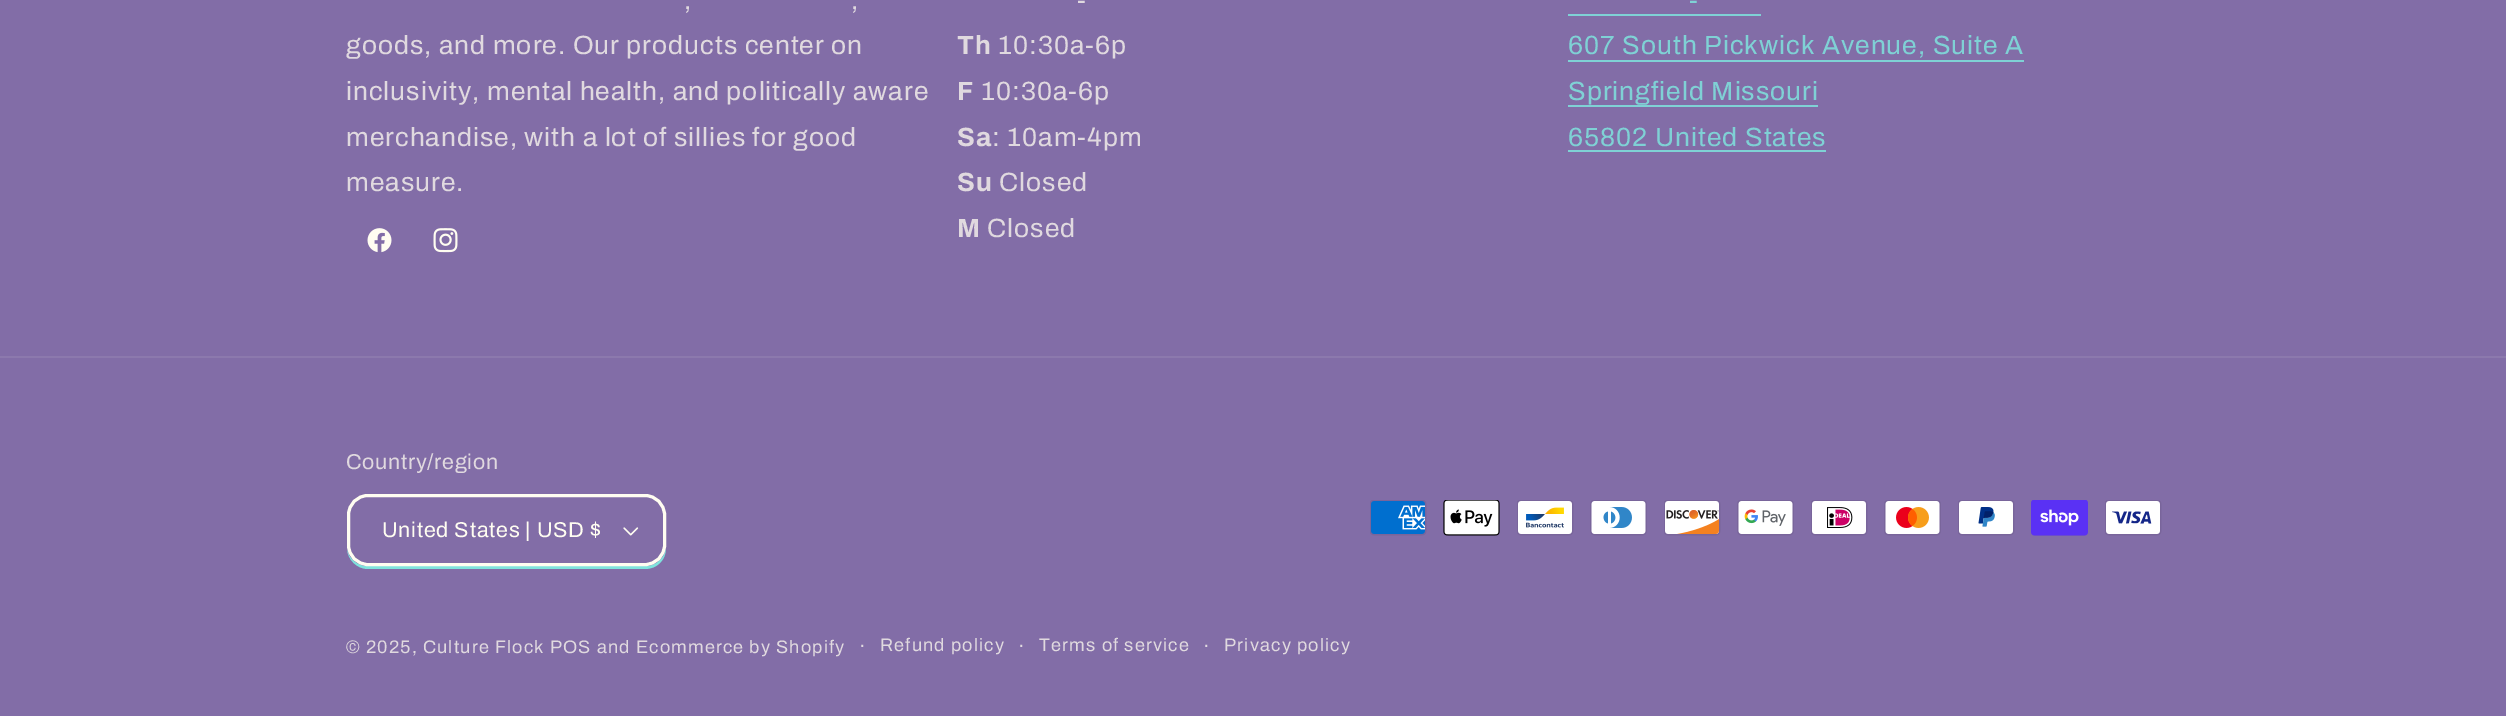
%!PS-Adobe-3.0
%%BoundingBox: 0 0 2506 716
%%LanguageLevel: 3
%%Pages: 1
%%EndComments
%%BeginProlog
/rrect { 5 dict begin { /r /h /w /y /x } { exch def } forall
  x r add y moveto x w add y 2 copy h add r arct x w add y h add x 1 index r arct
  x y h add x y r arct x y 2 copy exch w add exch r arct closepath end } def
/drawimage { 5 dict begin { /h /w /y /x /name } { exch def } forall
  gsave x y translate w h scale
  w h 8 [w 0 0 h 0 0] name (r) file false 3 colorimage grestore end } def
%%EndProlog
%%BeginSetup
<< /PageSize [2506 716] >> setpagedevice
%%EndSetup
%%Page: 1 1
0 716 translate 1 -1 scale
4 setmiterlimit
0.51 0.427 0.655 setrgbcolor
0 0 2506 716 rectfill
(images/1.raw) 367 228 25 25 drawimage
(images/2.raw) 433 228 25 25 drawimage
0.498 0.82 0.835 setrgbcolor
1568 14 193 2 rectfill
1568 60 456 2 rectfill
1568 105 250 2 rectfill
1568 150 258 2 rectfill
0.549 0.475 0.678 setrgbcolor
0 356 2506 2 rectfill
0.498 0.89 0.867 setrgbcolor
newpath 347 549 moveto 348 560 357 569 368 569 curveto 645 569 lineto 657 569 666 560 666 548 curveto 666 544 lineto 666 556 657 566 645 566 curveto 368 566 lineto 358 566 349 559 347 549 curveto closepath fill
0.51 0.427 0.655 setrgbcolor
347 494 319 72 21 rrect fill
(images/3.raw) 623 527 16 9 drawimage
1 0.992 0.945 setrgbcolor
3 setlinewidth
348.5 495.5 316 69 19.5 rrect stroke
(images/4.raw) 1370 500 57 36 drawimage
(images/5.raw) 1443 500 57 36 drawimage
(images/6.raw) 1517 500 57 36 drawimage
(images/7.raw) 1590 500 57 36 drawimage
(images/8.raw) 1664 500 57 36 drawimage
(images/9.raw) 1737 500 57 36 drawimage
(images/10.raw) 1811 500 57 36 drawimage
(images/11.raw) 1884 500 57 36 drawimage
(images/12.raw) 1958 500 57 36 drawimage
(images/13.raw) 2031 500 57 36 drawimage
(images/14.raw) 2105 500 57 36 drawimage
/Archivo-Regular [26.4 0 0 -26.4 0 0] selectfont
0.878 0.851 0.875 setrgbcolor
684 9 moveto 1 0 (,) ashow
851 9 moveto 1 0 (,) ashow
346 54 moveto 1 0 (goods, and more. Our products center on) ashow
346 100 moveto 1 0 (inclusivity, mental health, and politically aware) ashow
346 146 moveto 1 0 (merchandise, with a lot of sillies for good) ashow
346 191 moveto 1 0 (measure.) ashow
1077 9 moveto 1 0 (-) ashow
/Archivo-Bold [26.4 0 0 -26.4 0 0] selectfont
957 54 moveto 1 0 (Th) ashow
/Archivo-Regular [26.4 0 0 -26.4 0 0] selectfont
998 54 moveto 1 0 (10:30a-6p) ashow
/Archivo-Bold [26.4 0 0 -26.4 0 0] selectfont
957 100 moveto 1 0 (F) ashow
/Archivo-Regular [26.4 0 0 -26.4 0 0] selectfont
981 100 moveto 1 0 (10:30a-6p) ashow
/Archivo-Bold [26.4 0 0 -26.4 0 0] selectfont
957 146 moveto 1 0 (Sa) ashow
/Archivo-Regular [26.4 0 0 -26.4 0 0] selectfont
992 146 moveto 1 0 (: 10am-4pm) ashow
/Archivo-Bold [26.4 0 0 -26.4 0 0] selectfont
957 191 moveto 1 0 (Su) ashow
/Archivo-Regular [26.4 0 0 -26.4 0 0] selectfont
999 191 moveto 1 0 (Closed) ashow
/Archivo-Bold [26.4 0 0 -26.4 0 0] selectfont
957 237 moveto 1 0 (M) ashow
/Archivo-Regular [26.4 0 0 -26.4 0 0] selectfont
987 237 moveto 1 0 (Closed) ashow
0.498 0.82 0.835 setrgbcolor
1689 9 moveto 1 0 (-) ashow
1568 54 moveto 1 0 (607 South Pickwick Avenue, Suite A) ashow
1568 100 moveto 1 0 (Springfield Missouri) ashow
1568 146 moveto 1 0 (65802 United States) ashow
/Archivo-Regular [21.5 0 0 -21.5 0 0] selectfont
0.878 0.851 0.875 setrgbcolor
346 469 moveto 0.7 0 (Country/region) ashow
1 0.992 0.945 setrgbcolor
382 537 moveto 0.7 0 (United States | USD $) ashow
/Archivo-Regular [18.15 0 0 -18.15 0 0] selectfont
0.878 0.851 0.875 setrgbcolor
346 653 moveto 1.15 0 (© 2025, Culture Flock POS and Ecommerce by Shopify) ashow
/Archivo-Regular [20 0 0 -20 0 0] selectfont
859 653 moveto 1.15 0 (·) ashow
/Archivo-Regular [18.15 0 0 -18.15 0 0] selectfont
880 651 moveto 1.15 0 (Refund policy) ashow
/Archivo-Regular [20 0 0 -20 0 0] selectfont
1018 653 moveto 1.15 0 (·) ashow
/Archivo-Regular [18.15 0 0 -18.15 0 0] selectfont
1039 651 moveto 1.15 0 (Terms of service) ashow
/Archivo-Regular [20 0 0 -20 0 0] selectfont
1203 653 moveto 1.15 0 (·) ashow
/Archivo-Regular [18.15 0 0 -18.15 0 0] selectfont
1224 651 moveto 1.15 0 (Privacy policy) ashow
showpage
%%EOF
